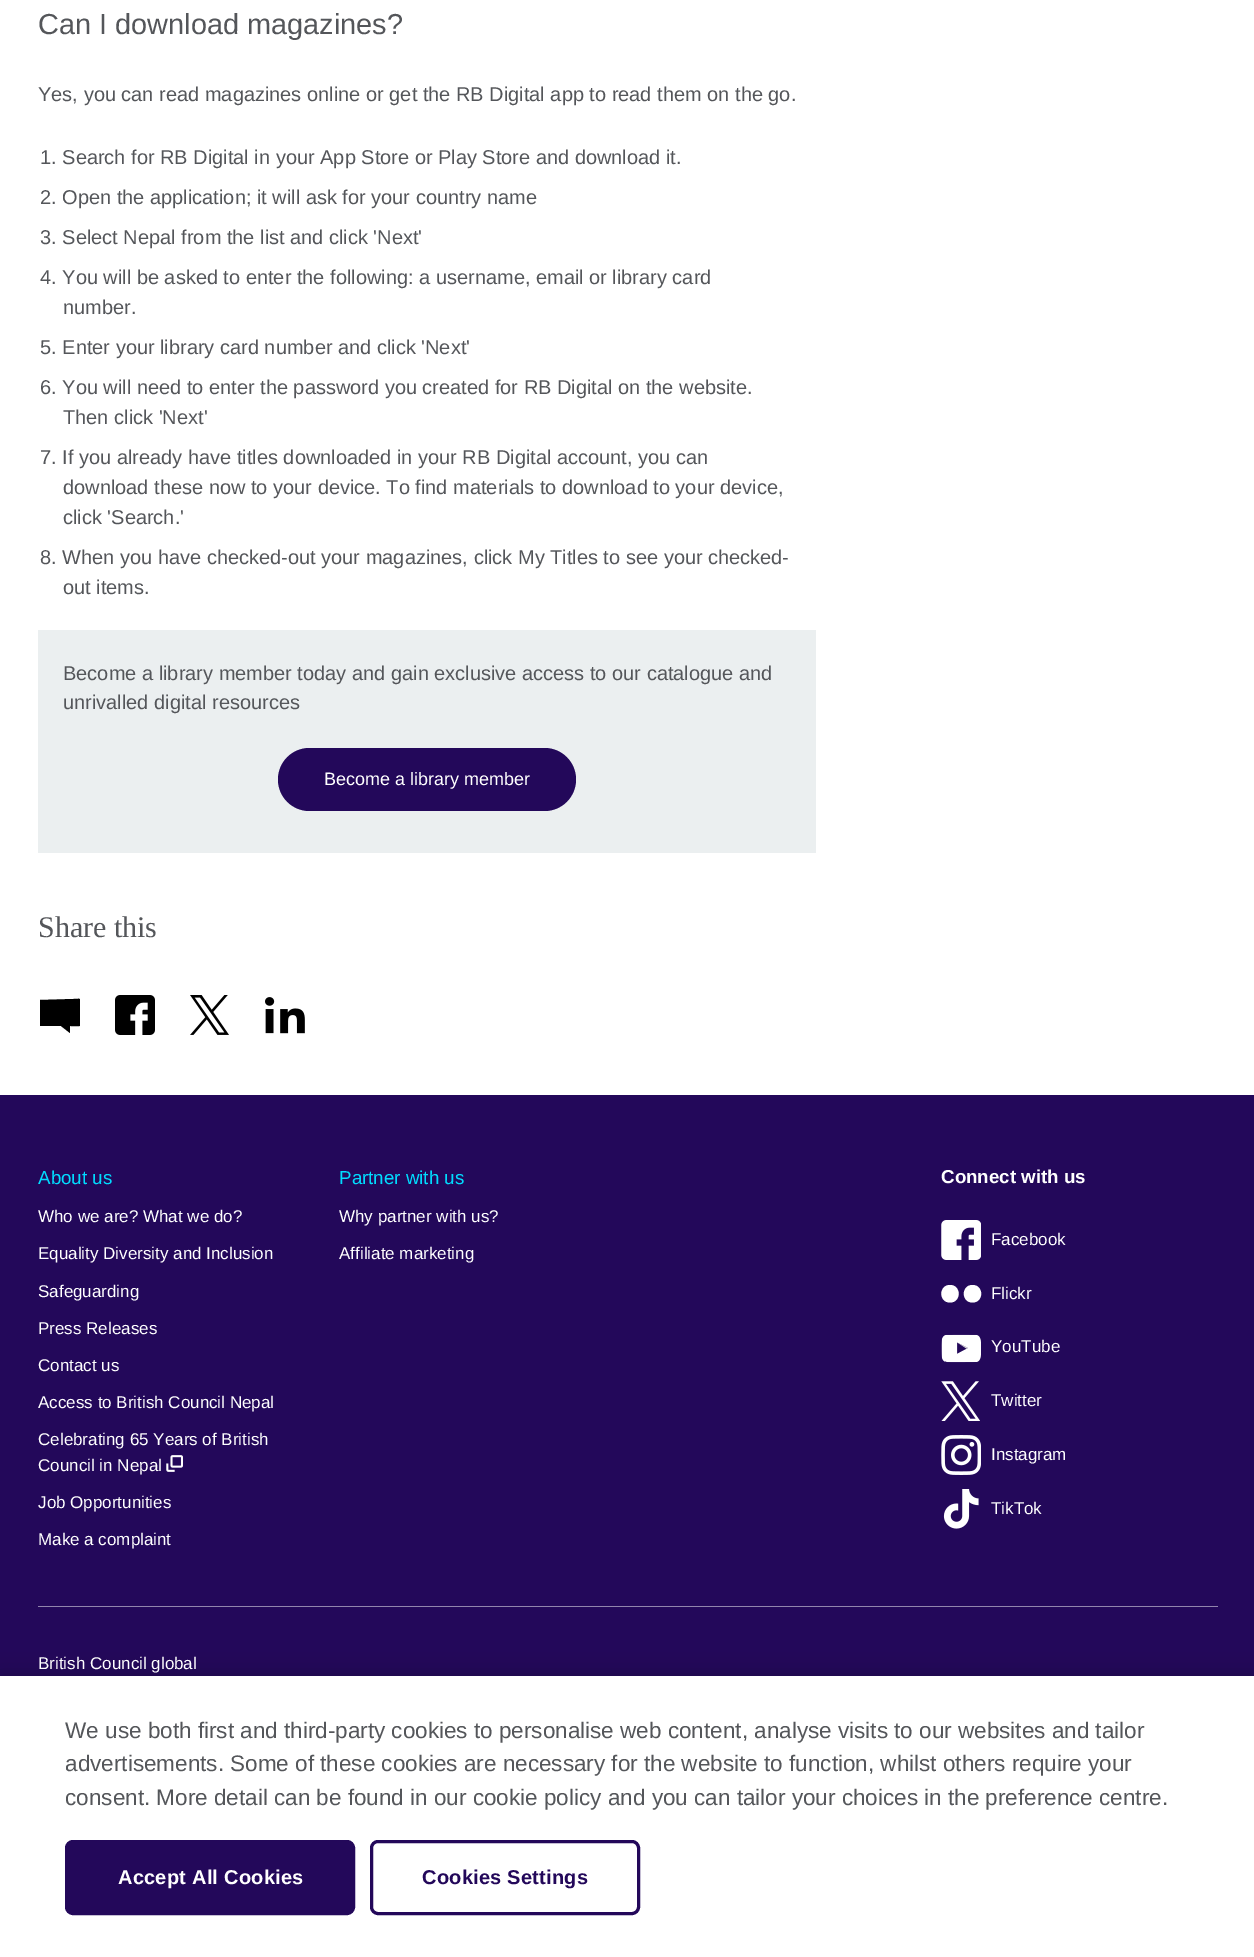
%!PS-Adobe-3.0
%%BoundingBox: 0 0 1254 1957
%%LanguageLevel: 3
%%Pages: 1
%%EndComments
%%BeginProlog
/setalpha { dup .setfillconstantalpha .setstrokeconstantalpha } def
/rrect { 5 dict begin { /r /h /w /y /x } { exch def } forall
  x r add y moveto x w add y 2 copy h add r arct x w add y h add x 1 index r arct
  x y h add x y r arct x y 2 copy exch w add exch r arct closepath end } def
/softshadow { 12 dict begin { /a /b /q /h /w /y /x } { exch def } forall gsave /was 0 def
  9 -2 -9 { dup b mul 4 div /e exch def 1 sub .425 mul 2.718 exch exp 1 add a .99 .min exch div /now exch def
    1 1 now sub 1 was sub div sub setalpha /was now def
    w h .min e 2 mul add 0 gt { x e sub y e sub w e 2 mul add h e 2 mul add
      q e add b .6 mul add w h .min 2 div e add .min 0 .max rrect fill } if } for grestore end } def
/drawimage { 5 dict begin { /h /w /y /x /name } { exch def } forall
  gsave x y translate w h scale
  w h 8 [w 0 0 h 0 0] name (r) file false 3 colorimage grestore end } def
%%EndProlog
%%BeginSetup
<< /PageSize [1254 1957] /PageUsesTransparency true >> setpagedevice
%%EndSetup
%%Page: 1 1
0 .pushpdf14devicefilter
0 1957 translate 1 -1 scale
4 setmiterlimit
1 setgray
0 0 1254 1957 rectfill
0.922 0.937 0.941 setrgbcolor
38 630 778 223 rectfill
0.137 0.031 0.353 setrgbcolor
278 748 298 63 31.5 rrect fill
gsave
40 995 40 40 rectclip
0 setgray
newpath 40 1000 moveto 73 999 lineto 81 999 80 997 80 1004 curveto 80 1012 lineto 80 1029 84 1026 70 1026 curveto 70 1033 lineto 61 1026 lineto 40 1026 lineto closepath fill
grestore
(images/1.raw) 115 995 40 40 drawimage
(images/2.raw) 190 995 39 40 drawimage
(images/3.raw) 265 997 40 37 drawimage
0 1095 1254 581 rectfill
(images/4.raw) 166 1455 17 17 drawimage
(images/5.raw) 941 1220 40 40 drawimage
1 setgray
newpath 950 1302.5 moveto 961.5 1302.5 961.5 1285 950 1285 curveto 938.5 1285 938.5 1302.5 950 1302.5 curveto closepath 972.5 1302.5 moveto 984 1302.5 984 1285 972.5 1285 curveto 961 1285 961 1302.5 972.5 1302.5 curveto closepath fill
(images/6.raw) 941 1334 40 29 drawimage
(images/7.raw) 941 1381 39 40 drawimage
(images/8.raw) 941 1435 40 40 drawimage
(images/9.raw) 943 1489 36 40 drawimage
0.569 0.518 0.678 setrgbcolor
38 1606 1180 1 rectfill
0 setgray
0 1676 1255 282 0 11 0.2 softshadow
1 setgray
0 1676 1254 281 rectfill
0.137 0.031 0.353 setrgbcolor
66.5 1841.5 287 72 6.5 rrect gsave fill grestore
3 setlinewidth
stroke
371.5 1841.5 267 72 6.5 rrect stroke
/LiberationSans-Regular [28.9 0 0 -28.9 0 0] selectfont
0.329 0.337 0.353 setrgbcolor
38 34 moveto (Can I download magazines?) show
/LiberationSans-Regular [20 0 0 -20 0 0] selectfont
38 101 moveto (Yes, you can read magazines online or get the RB Digital app to read them on the go.) show
40 164 moveto (1. Search for RB Digital in your App Store or Play Store and download it.) show
40 204 moveto (2. Open the application; it will ask for your country name) show
40 244 moveto (3. Select Nepal from the list and click 'Next') show
40 284 moveto (4. You will be asked to enter the following: a username, email or library card) show
63 314 moveto (number.) show
40 354 moveto (5. Enter your library card number and click 'Next') show
40 394 moveto (6. You will need to enter the password you created for RB Digital on the website.) show
63 424 moveto (Then click 'Next') show
40 464 moveto (7. If you already have titles downloaded in your RB Digital account, you can) show
63 494 moveto (download these now to your device. To find materials to download to your device,) show
63 524 moveto (click 'Search.') show
40 564 moveto (8. When you have checked-out your magazines, click My Titles to see your checked-) show
63 594 moveto (out items.) show
63 680 moveto (Become a library member today and gain exclusive access to our catalogue and) show
63 709 moveto (unrivalled digital resources) show
/LiberationSans-Regular [18 0 0 -18 0 0] selectfont
1 setgray
324 785 moveto (Become a library member) show
/LiberationSerif-Regular [30 0 0 -30 0 0] selectfont
0.329 0.337 0.353 setrgbcolor
38 937 moveto (Share this) show
/LiberationSans-Regular [18.75 0 0 -18.75 0 0] selectfont
0 0.863 1 setrgbcolor
38 1184 moveto (About us) show
/LiberationSans-Regular [17 0 0 -17 0 0] selectfont
1 setgray
38 1222 moveto (Who we are? What we do?) show
38 1259 moveto (Equality Diversity and Inclusion) show
38 1297 moveto (Safeguarding) show
38 1334 moveto (Press Releases) show
38 1371 moveto (Contact us) show
38 1408 moveto (Access to British Council Nepal) show
38 1445 moveto (Celebrating 65 Years of British) show
38 1471 moveto (Council in Nepal) show
38 1508 moveto (Job Opportunities) show
38 1545 moveto (Make a complaint) show
/LiberationSans-Regular [18.75 0 0 -18.75 0 0] selectfont
0 0.863 1 setrgbcolor
339 1184 moveto (Partner with us) show
/LiberationSans-Regular [17 0 0 -17 0 0] selectfont
1 setgray
339 1222 moveto (Why partner with us?) show
339 1259 moveto (Affiliate marketing) show
/LiberationSans-Bold [18.75 0 0 -18.75 0 0] selectfont
941 1183 moveto (Connect with us) show
/LiberationSans-Regular [17 0 0 -17 0 0] selectfont
991 1245 moveto (Facebook) show
991 1299 moveto (Flickr) show
991 1352 moveto (YouTube) show
991 1406 moveto (Twitter) show
991 1460 moveto (Instagram) show
991 1514 moveto (TikTok) show
38 1669 moveto (British Council global) show
/LiberationSans-Regular [22.5 0 0 -22.5 0 0] selectfont
0.329 0.337 0.353 setrgbcolor
65 1738 moveto (We use both first and third-party cookies to personalise web content, analyse visits to our websites and tailor) show
65 1771 moveto (advertisements. Some of these cookies are necessary for the website to function, whilst others require your) show
65 1805 moveto (consent. More detail can be found in our cookie policy and you can tailor your choices in the preference centre.) show
/LiberationSans-Bold [20 0 0 -20 0 0] selectfont
1 setgray
118 1884 moveto 0.25 0 (Accept All Cookies) ashow
0.137 0.031 0.353 setrgbcolor
422 1884 moveto 0.25 0 (Cookies Settings) ashow
.poppdf14devicefilter showpage
%%EOF
